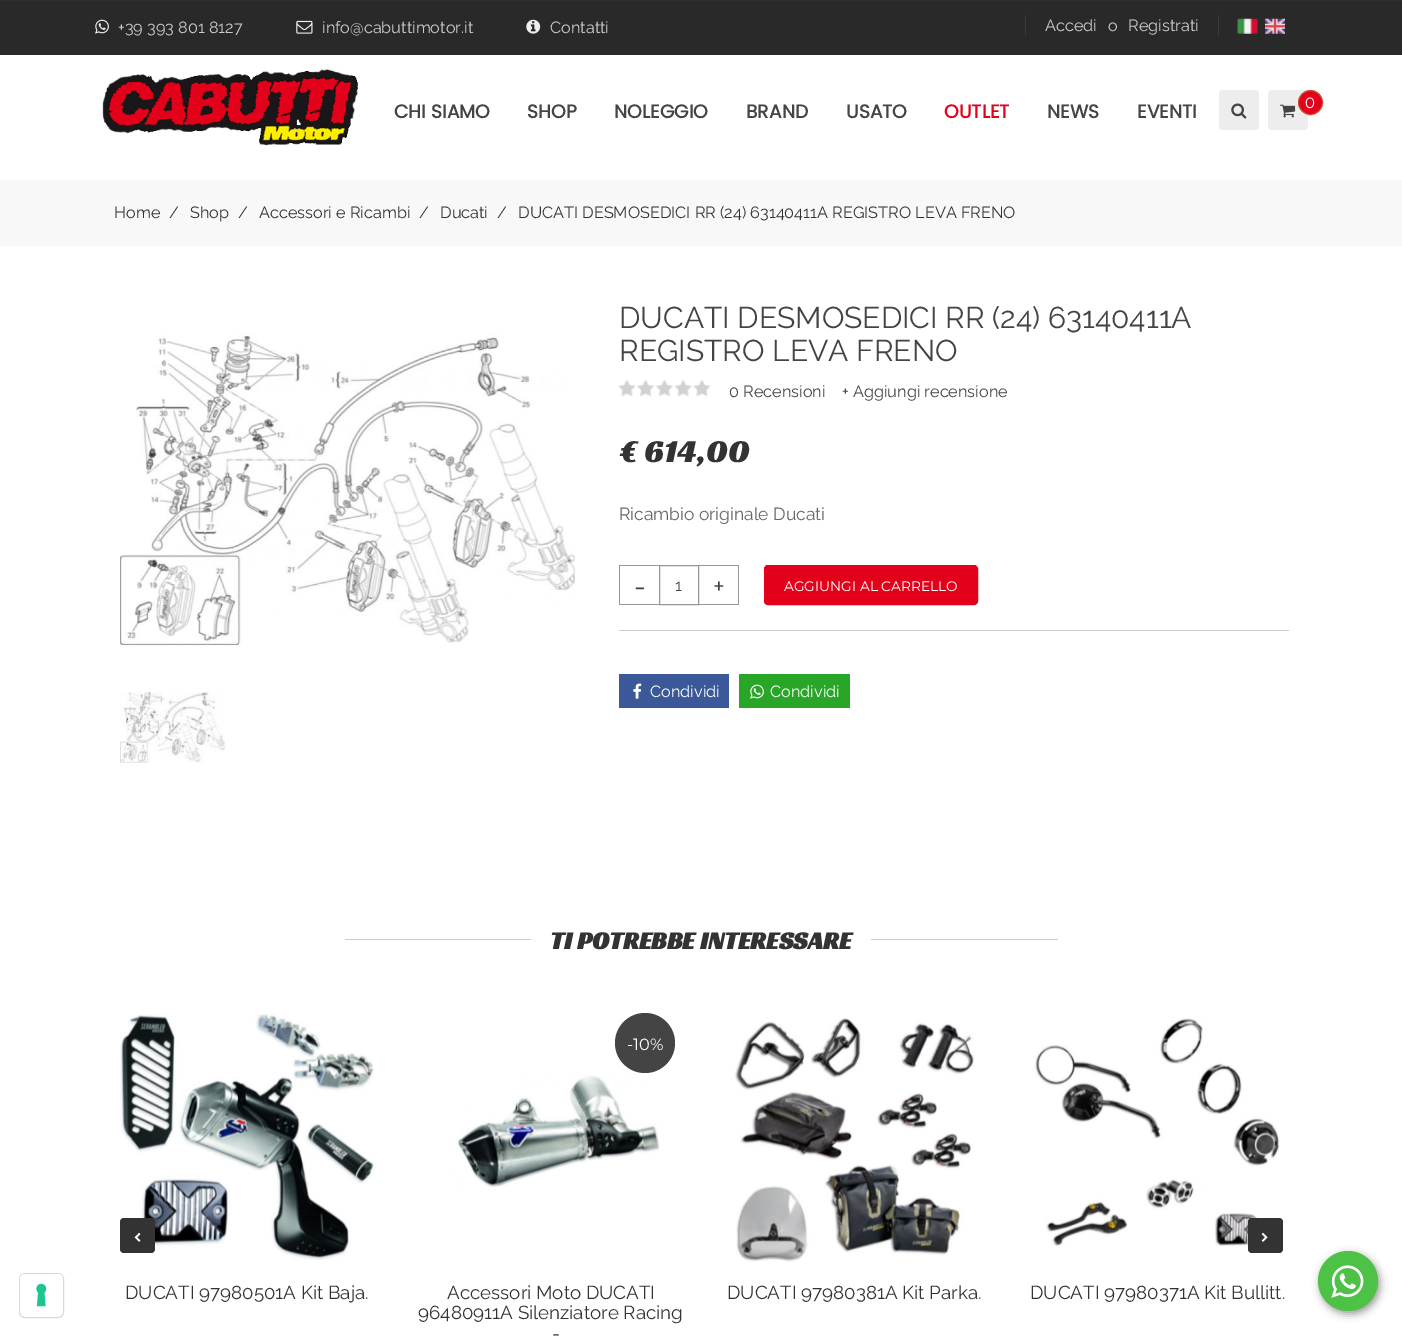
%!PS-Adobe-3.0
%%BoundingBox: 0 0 1402 1336
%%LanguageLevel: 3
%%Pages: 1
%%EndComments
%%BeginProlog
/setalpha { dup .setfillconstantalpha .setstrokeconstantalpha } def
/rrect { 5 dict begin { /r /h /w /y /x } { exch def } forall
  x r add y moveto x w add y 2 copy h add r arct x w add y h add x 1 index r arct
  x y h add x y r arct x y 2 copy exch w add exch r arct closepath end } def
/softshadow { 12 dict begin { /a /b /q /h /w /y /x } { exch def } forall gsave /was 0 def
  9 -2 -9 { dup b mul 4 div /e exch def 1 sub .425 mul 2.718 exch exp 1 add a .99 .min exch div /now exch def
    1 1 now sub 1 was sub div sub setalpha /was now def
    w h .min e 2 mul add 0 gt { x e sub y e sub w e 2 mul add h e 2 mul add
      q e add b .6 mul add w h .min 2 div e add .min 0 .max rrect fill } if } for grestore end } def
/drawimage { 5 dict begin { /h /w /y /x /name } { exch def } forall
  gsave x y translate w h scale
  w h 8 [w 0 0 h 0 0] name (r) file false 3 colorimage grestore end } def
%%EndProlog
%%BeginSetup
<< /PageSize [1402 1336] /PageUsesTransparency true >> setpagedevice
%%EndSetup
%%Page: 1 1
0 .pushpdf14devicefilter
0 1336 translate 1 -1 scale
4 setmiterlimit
1 setgray
0 0 1402 1336 rectfill
0.851 setgray
19.5 1273.5 44 44 5.5 rrect stroke
1 setgray
20 1274 43 42 5 rrect fill
(images/1.raw) 36 1283 11 24 drawimage
0.161 setgray
0 1 1402 54 rectfill
0.184 0.18 0.165 setrgbcolor
0 0 1402 1 rectfill
(images/2.raw) 95 19 14 15 drawimage
(images/3.raw) 296 20 17 14 drawimage
(images/4.raw) 526 19 15 15 drawimage
0.227 setgray
1025 15 1 21 rectfill
1218 15 1 21 rectfill
(images/5.raw) 1237 18 21 16 drawimage
(images/6.raw) 1265 18 20 16 drawimage
(images/7.raw) 102 69 257 77 drawimage
0.929 setgray
1219 90 40 40 4 rrect fill
(images/8.raw) 1231 103 16 16 drawimage
1268 90 40 40 4 rrect fill
(images/9.raw) 1280 104 16 14 drawimage
0.886 0 0.102 setrgbcolor
newpath 1310.5 102.5 12 0 360 arc closepath gsave fill grestore
0.816 0.302 0.184 setrgbcolor
stroke
0.973 setgray
0 180 1402 66 rectfill
(images/10.raw) 120 309 455 365 drawimage
(images/11.raw) 120 691 105 72 drawimage
(images/12.raw) 618 380 92 17 drawimage
0.592 setgray
619 565 40 1 rectfill
619 604 40 1 rectfill
619 565 1 40 rectfill
659.5 565.5 39 39 rectstroke
699 565 40 1 rectfill
738 565 1 40 rectfill
699 604 40 1 rectfill
0.886 0 0.102 setrgbcolor
764.5 565.5 213 39 3.5 rrect gsave fill grestore
stroke
0.8 setgray
619 630 670 1 rectfill
0.231 0.349 0.596 setrgbcolor
619 674 110 34 rectfill
(images/13.raw) 633 683 9 16 drawimage
0.161 0.651 0.157 setrgbcolor
739 674 111 34 rectfill
(images/14.raw) 750 684 14 15 drawimage
0.8 setgray
345 939 713 1 rectfill
1 setgray
531 939 340 1 rectfill
(images/15.raw) 120 1013 254 247 drawimage
0.267 setgray
newpath 645 1043 30 0 360 arc closepath fill
(images/16.raw) 453 1075 207 112 drawimage
(images/17.raw) 735 1018 239 244 drawimage
(images/18.raw) 1035 1018 245 228 drawimage
0.2 setgray
120 1218 35 35 4 rrect fill
(images/19.raw) 134 1232 7 10 drawimage
1248 1218 35 35 4 rrect fill
(images/20.raw) 1261 1232 7 10 drawimage
0 setgray
1320 1254 60 60 30 4 0.4 softshadow
0.302 0.761 0.278 setrgbcolor
newpath 1348 1281 30 0 360 arc closepath fill
(images/21.raw) 1331 1265 33 33 drawimage
/Raleway-Regular [16.25 0 0 -16.25 0 0] selectfont
0.8 setgray
118 33 moveto (+39 393 801 8127) show
322 33 moveto (info@cabuttimotor.it) show
550 33 moveto (Contatti) show
1045 31 moveto (Accedi) show
1108 31 moveto (o) show
1128 31 moveto (Registrati) show
/Poppins-Bold [18.75 0 0 -18.75 0 0] selectfont
0.267 setgray
394 118 moveto (CHI SIAMO) show
527 118 moveto (SHOP) show
614 118 moveto (NOLEGGIO) show
746 118 moveto (BRAND) show
846 118 moveto (USATO) show
0.886 0 0.102 setrgbcolor
944 118 moveto (OUTLET) show
0.267 setgray
1047 118 moveto (NEWS) show
1137 118 moveto (EVENTI) show
/Montserrat-Regular [15 0 0 -15 0 0] selectfont
1 setgray
1305 108 moveto (0) show
/Raleway-Regular [16.25 0 0 -16.25 0 0] selectfont
0.2 setgray
114 218 moveto (Home) show
169 218 moveto (/) show
190 218 moveto (Shop) show
238 218 moveto (/) show
259 218 moveto (Accessori e Ricambi) show
419 218 moveto (/) show
440 218 moveto (Ducati) show
497 218 moveto (/) show
518 218 moveto (DUCATI DESMOSEDICI RR \(24\) 63140411A REGISTRO LEVA FRENO) show
/Raleway-Regular [30 0 0 -30 0 0] selectfont
0.267 setgray
619 328 moveto (DUCATI DESMOSEDICI RR \(24\) 63140411A) show
619 361 moveto (REGISTRO LEVA FRENO) show
/Raleway-Regular [16.25 0 0 -16.25 0 0] selectfont
729 397 moveto (0 Recensioni) show
842 397 moveto (+ Aggiungi recensione) show
/RacingSansOne-Regular [32.5 0 0 -32.5 0 0] selectfont
0.2 setgray
619 462 moveto (€ 614,00) show
/Raleway-Regular [17.5 0 0 -17.5 0 0] selectfont
0.4 setgray
619 520 moveto (Ricambio originale Ducati) show
/Raleway-Regular [28 0 0 -28 0 0] selectfont
0.267 setgray
634 596 moveto (-) show
/Raleway-Regular [16.25 0 0 -16.25 0 0] selectfont
675 591 moveto (1) show
/Raleway-Regular [28 0 0 -28 0 0] selectfont
713 596 moveto (+) show
/Montserrat-Regular [13.75 0 0 -13.75 0 0] selectfont
1 setgray
784 591 moveto (AGGIUNGI AL CARRELLO) show
/Raleway-Regular [16.25 0 0 -16.25 0 0] selectfont
650 697 moveto (Condividi) show
770 697 moveto (Condividi) show
/RacingSansOne-Bold [25 0 0 -25 0 0] selectfont
0.2 setgray
550 949 moveto (TI POTREBBE INTERESSARE) show
/Raleway-Regular [18.75 0 0 -18.75 0 0] selectfont
125 1299 moveto (DUCATI 97980501A Kit Baja.) show
/Montserrat-Regular [16.25 0 0 -16.25 0 0] selectfont
1 setgray
627 1050 moveto (-10%) show
/Raleway-Regular [18.75 0 0 -18.75 0 0] selectfont
0.2 setgray
447 1299 moveto (Accessori Moto DUCATI) show
418 1319 moveto (96480911A Silenziatore Racing) show
552 1340 moveto (-) show
727 1299 moveto (DUCATI 97980381A Kit Parka.) show
1030 1299 moveto (DUCATI 97980371A Kit Bullitt.) show
.poppdf14devicefilter showpage
%%EOF
